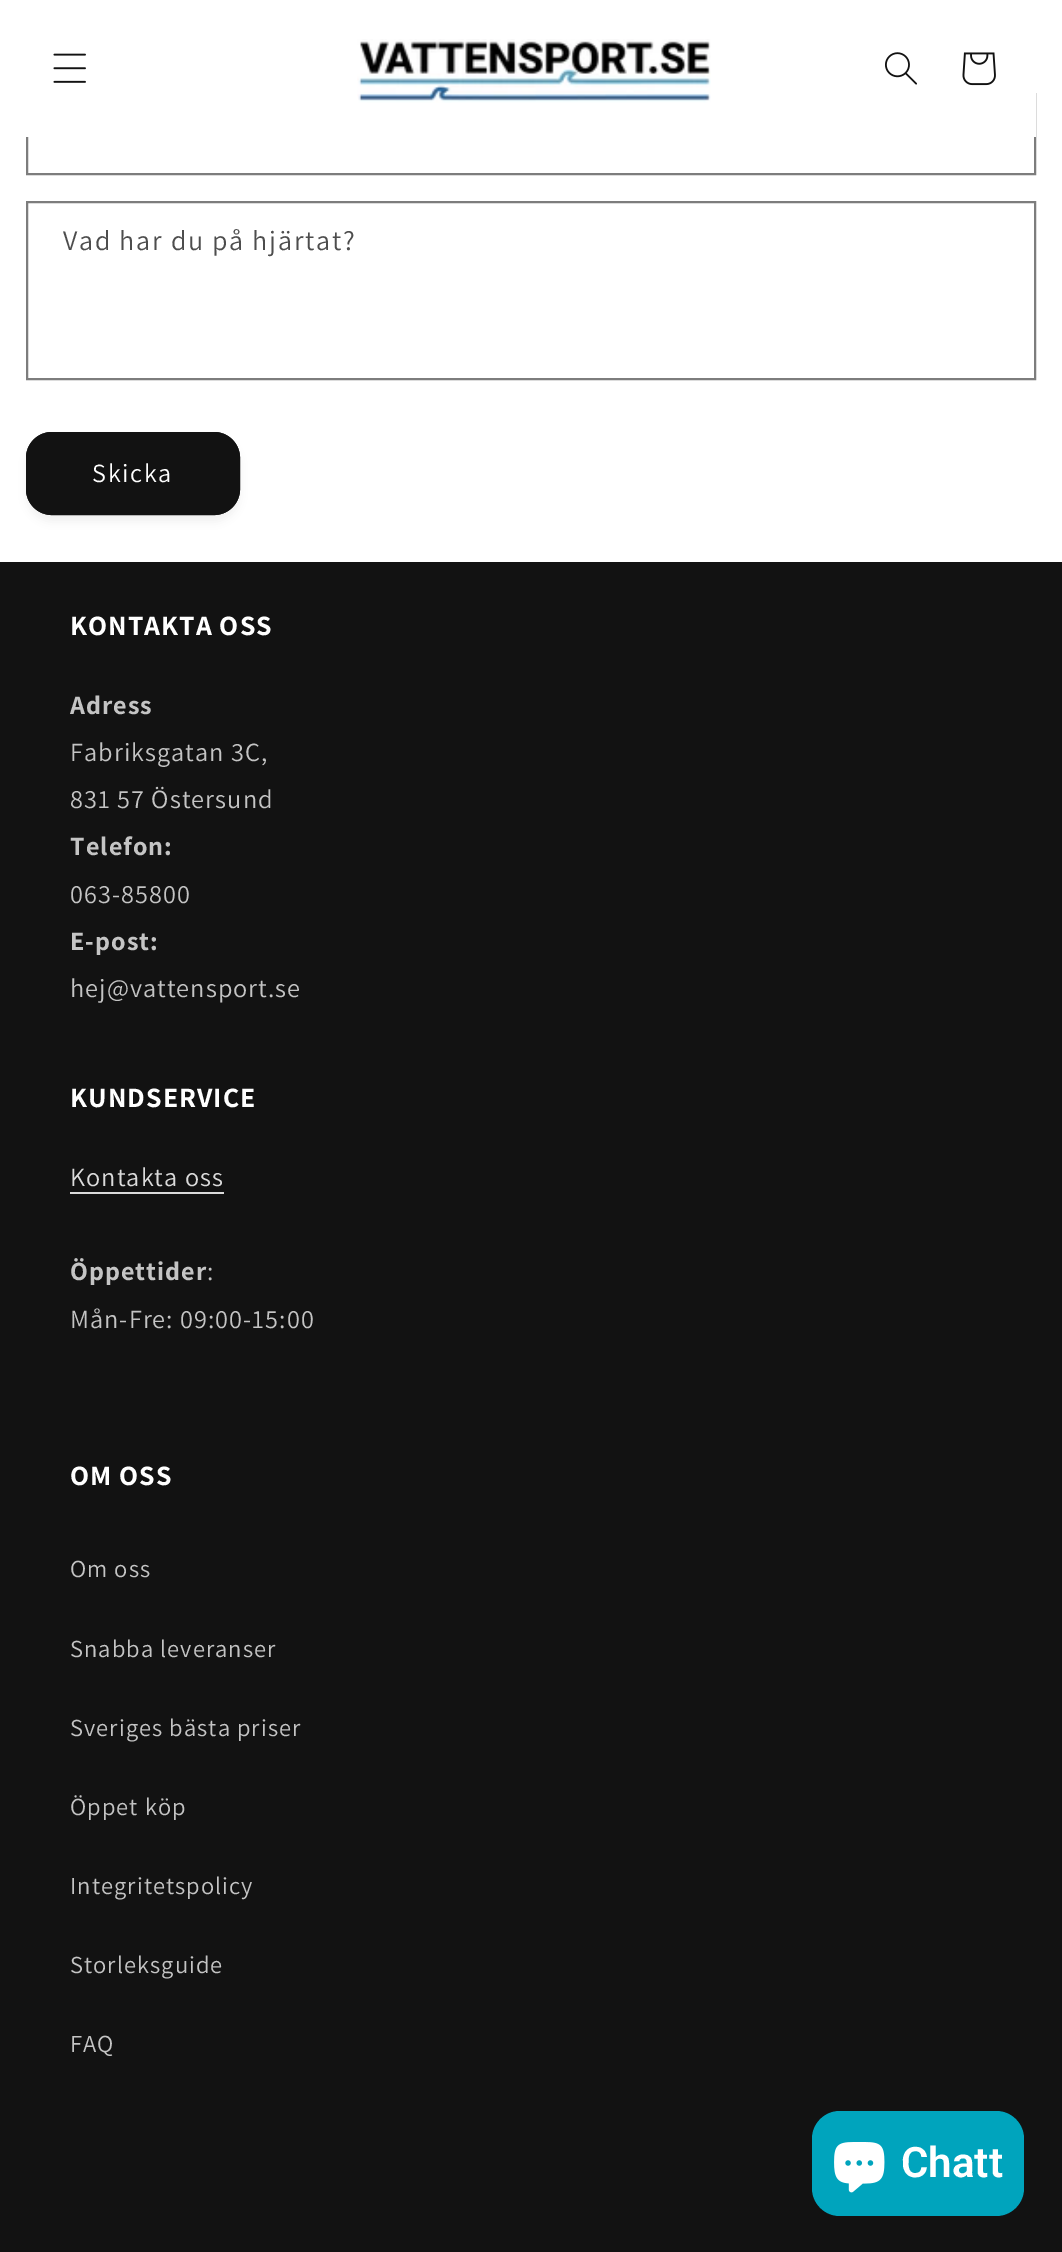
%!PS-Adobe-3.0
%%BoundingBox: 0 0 1062 2252
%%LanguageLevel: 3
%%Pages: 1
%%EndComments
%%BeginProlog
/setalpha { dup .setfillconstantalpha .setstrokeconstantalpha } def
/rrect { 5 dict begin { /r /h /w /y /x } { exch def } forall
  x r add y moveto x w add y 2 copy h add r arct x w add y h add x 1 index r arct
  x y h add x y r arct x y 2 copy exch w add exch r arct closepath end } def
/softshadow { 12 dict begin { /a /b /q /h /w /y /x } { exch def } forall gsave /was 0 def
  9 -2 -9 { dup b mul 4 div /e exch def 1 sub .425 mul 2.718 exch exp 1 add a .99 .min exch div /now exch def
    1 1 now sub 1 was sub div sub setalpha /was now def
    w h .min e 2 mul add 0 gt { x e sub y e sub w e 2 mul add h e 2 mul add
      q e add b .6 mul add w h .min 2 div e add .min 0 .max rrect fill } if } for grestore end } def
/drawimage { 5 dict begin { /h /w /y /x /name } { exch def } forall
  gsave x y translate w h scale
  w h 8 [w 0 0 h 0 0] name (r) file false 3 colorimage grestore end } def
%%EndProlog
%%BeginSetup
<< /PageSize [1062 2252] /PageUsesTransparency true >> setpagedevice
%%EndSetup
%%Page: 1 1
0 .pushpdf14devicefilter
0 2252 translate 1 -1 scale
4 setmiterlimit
1 setgray
0 0 1062 2252 rectfill
0.49 setgray
2 setlinewidth
27 94 1008 80 rectstroke
1 setgray
26 93 1010 44 rectfill
(images/1.raw) 53 53 33 30 drawimage
(images/2.raw) 357 39 354 64 drawimage
(images/3.raw) 885 52 32 33 drawimage
(images/4.raw) 962 52 34 34 drawimage
0.49 setgray
27 202 1008 177 rectstroke
0.071 setgray
26 439 214 83 26 4.5 0.05 softshadow
26 432 214 83 26 rrect fill
27 433 212 81 25 rrect stroke
0 562 1062 1690 rectfill
0.859 setgray
70 1192 154 2 rectfill
0 0.643 0.741 setrgbcolor
812 2111 212 105 28 rrect fill
(images/5.raw) 834 2142 51 51 drawimage
/Assistant-Regular [28 0 0 -28 0 0] selectfont
0.302 setgray
63 250 moveto 1.75 0 (Vad har du på hjärtat?) ashow
/Assistant-Regular [26.25 0 0 -26.25 0 0] selectfont
1 setgray
92 482 moveto 1.75 0 (Skicka) ashow
/Assistant-Bold [28 0 0 -28 0 0] selectfont
70 635 moveto 1.05 0 (KONTAKTA OSS) ashow
/Assistant-Bold [26.25 0 0 -26.25 0 0] selectfont
0.769 setgray
70 714 moveto 1.05 0 (Adress) ashow
/Assistant-Regular [26.25 0 0 -26.25 0 0] selectfont
70 761 moveto 1.05 0 (Fabriksgatan 3C,) ashow
70 808 moveto 1.05 0 (831 57 Östersund) ashow
/Assistant-Bold [26.25 0 0 -26.25 0 0] selectfont
70 855 moveto 1.05 0 (Telefon:) ashow
/Assistant-Regular [26.25 0 0 -26.25 0 0] selectfont
70 903 moveto 1.05 0 (063-85800) ashow
/Assistant-Bold [26.25 0 0 -26.25 0 0] selectfont
70 950 moveto 1.05 0 (E-post:) ashow
/Assistant-Regular [26.25 0 0 -26.25 0 0] selectfont
70 997 moveto 1.05 0 (hej@vattensport.se) ashow
/Assistant-Bold [28 0 0 -28 0 0] selectfont
1 setgray
70 1107 moveto 1.05 0 (KUNDSERVICE) ashow
/Assistant-Regular [26.25 0 0 -26.25 0 0] selectfont
0.859 setgray
70 1186 moveto 1.05 0 (Kontakta oss) ashow
/Assistant-Bold [26.25 0 0 -26.25 0 0] selectfont
0.769 setgray
70 1280 moveto 1.05 0 (Öppettider) ashow
/Assistant-Regular [26.25 0 0 -26.25 0 0] selectfont
207 1280 moveto 1.05 0 (:) ashow
70 1328 moveto 1.05 0 (Mån-Fre: 09:00-15:00) ashow
/Assistant-Bold [28 0 0 -28 0 0] selectfont
1 setgray
70 1485 moveto 1.05 0 (OM OSS) ashow
/Assistant-Regular [24.5 0 0 -24.5 0 0] selectfont
0.769 setgray
70 1577 moveto 1.05 0 (Om oss) ashow
70 1657 moveto 1.05 0 (Snabba leveranser) ashow
70 1736 moveto 1.05 0 (Sveriges bästa priser) ashow
70 1815 moveto 1.05 0 (Öppet köp) ashow
70 1894 moveto 1.05 0 (Integritetspolicy) ashow
70 1973 moveto 1.05 0 (Storleksguide) ashow
70 2052 moveto 1.05 0 (FAQ) ashow
/Roboto-SemiBold [42 0 0 -42 0 0] selectfont
1 setgray
901 2177 moveto (Chatt) show
.poppdf14devicefilter showpage
%%EOF
